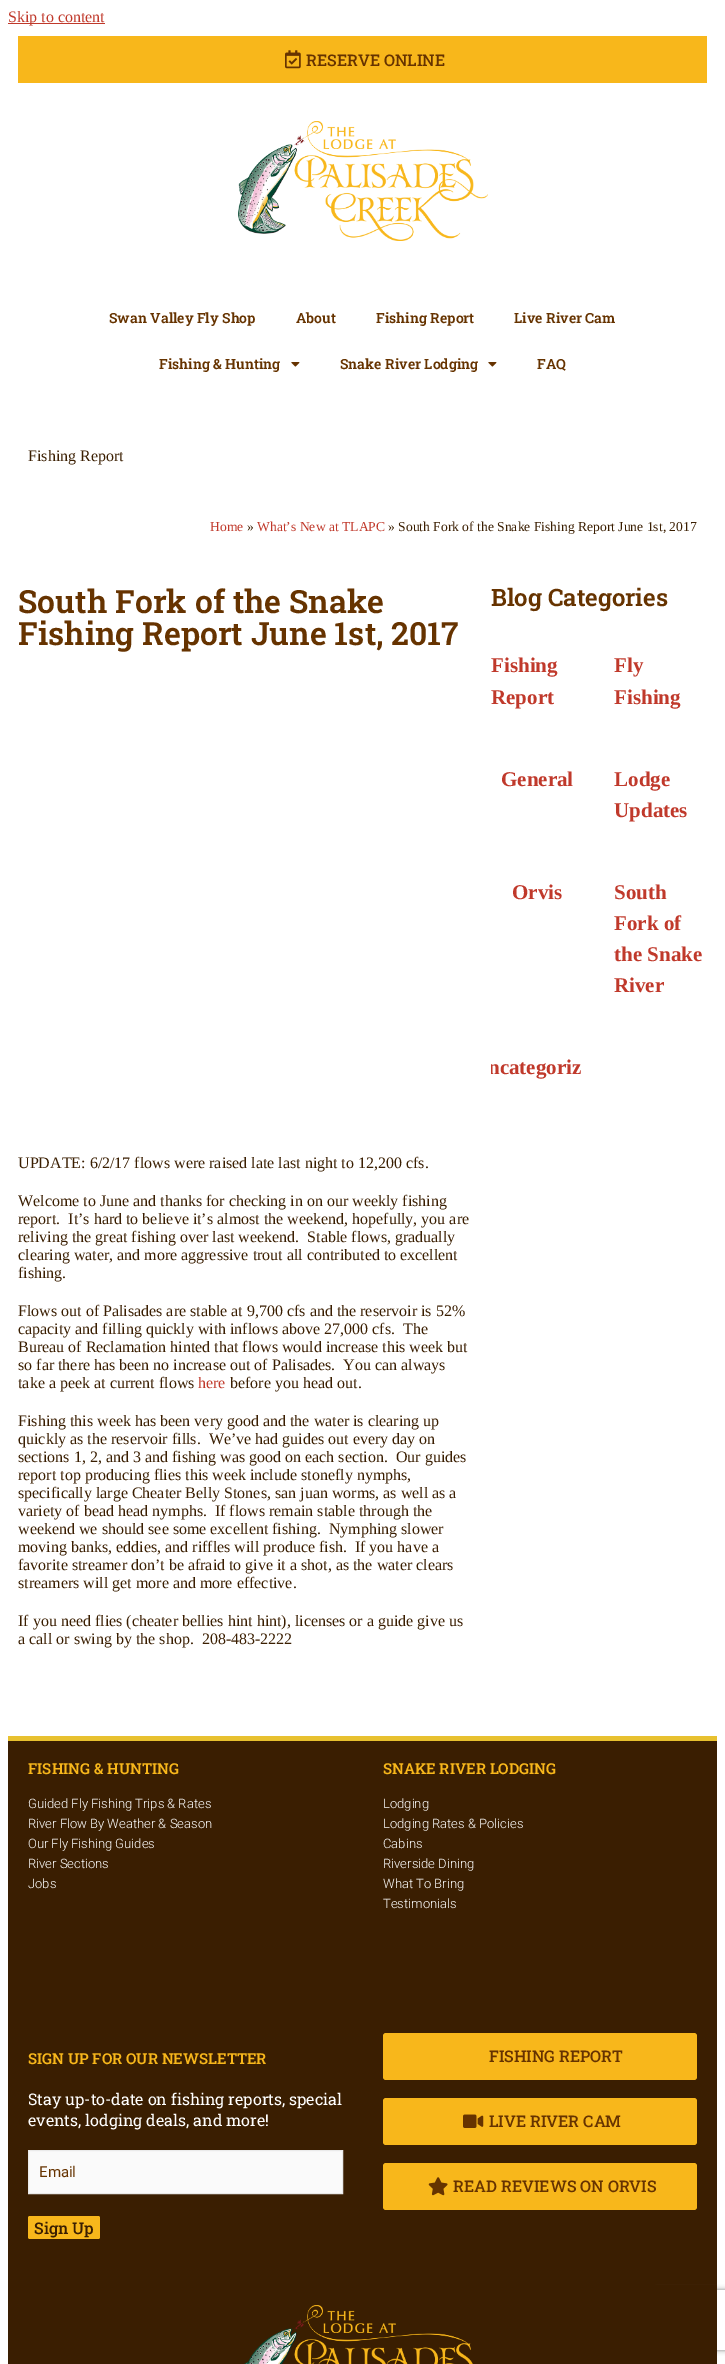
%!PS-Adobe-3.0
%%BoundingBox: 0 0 725 2364
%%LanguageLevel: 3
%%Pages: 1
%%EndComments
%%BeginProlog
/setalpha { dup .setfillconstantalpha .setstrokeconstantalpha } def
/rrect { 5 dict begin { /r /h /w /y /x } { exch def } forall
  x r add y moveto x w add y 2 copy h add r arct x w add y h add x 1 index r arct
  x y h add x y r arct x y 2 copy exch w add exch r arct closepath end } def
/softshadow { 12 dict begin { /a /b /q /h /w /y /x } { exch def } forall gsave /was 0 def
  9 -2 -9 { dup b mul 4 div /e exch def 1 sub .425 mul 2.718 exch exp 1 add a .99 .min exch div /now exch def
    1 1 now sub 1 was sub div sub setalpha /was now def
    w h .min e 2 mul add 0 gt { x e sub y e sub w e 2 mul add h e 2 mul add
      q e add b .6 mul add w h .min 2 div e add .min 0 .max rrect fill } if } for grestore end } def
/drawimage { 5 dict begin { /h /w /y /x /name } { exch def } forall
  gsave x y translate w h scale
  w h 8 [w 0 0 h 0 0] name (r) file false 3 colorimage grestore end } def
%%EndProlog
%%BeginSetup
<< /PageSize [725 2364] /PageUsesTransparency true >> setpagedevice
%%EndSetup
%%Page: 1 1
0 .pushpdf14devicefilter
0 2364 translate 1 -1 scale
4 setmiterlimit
1 setgray
0 0 725 2364 rectfill
0.753 0.224 0.169 setrgbcolor
8 23 97 1 rectfill
0.973 0.718 0.106 setrgbcolor
18 36 689 47 rectfill
(images/1.raw) 285 50 16 19 drawimage
(images/2.raw) 238 121 250 120 drawimage
(images/3.raw) 291 362 9 5 drawimage
(images/3.raw) 488 362 9 5 drawimage
0.227 0.118 0.004 setrgbcolor
8 1741 709 544 rectfill
0.91 0.757 0.184 setrgbcolor
8 1736 709 5 rectfill
0.98 setgray
newpath 28.5 2150.5 moveto 342.5 2150.5 lineto 342.5 2193.5 lineto 28.5 2193.5 lineto closepath gsave fill grestore
0.918 setgray
stroke
gsave
newpath 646 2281 moveto 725 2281 lineto 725 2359 lineto 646 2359 lineto closepath 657 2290 moveto 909 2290 lineto 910 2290 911 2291 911 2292 curveto 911 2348 lineto 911 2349 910 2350 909 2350 curveto 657 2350 lineto 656 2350 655 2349 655 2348 curveto 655 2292 lineto 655 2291 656 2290 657 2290 curveto closepath eoclip newpath
0.502 setgray
655 2290 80 60 2 2.5 1 softshadow
grestore
0.973 0.718 0.106 setrgbcolor
28 2216 72 23 2 rrect fill
383 2033 314 47 3 rrect fill
383 2098 314 47 3 rrect fill
(images/4.raw) 463 2114 21 14 drawimage
383 2163 314 47 3 rrect fill
(images/5.raw) 428 2177 20 19 drawimage
0.227 0.118 0.004 setrgbcolor
8 2285 709 79 rectfill
(images/6.raw) 244 2305 229 59 drawimage
/LiberationSerif-Regular [16 0 0 -16 0 0] selectfont
0.753 0.224 0.169 setrgbcolor
8 22 moveto (Skip to content) show
/RobotoSlab-Medium [16 0 0 -16 0 0] selectfont
0.4 0.2 0 setrgbcolor
306 66 moveto (RESERVE ONLINE) show
/RobotoSlab-SemiBold [14 0 0 -14 0 0] selectfont
109 323 moveto (Swan Valley Fly Shop) show
296 323 moveto (About) show
376 323 moveto (Fishing Report) show
514 323 moveto (Live River Cam) show
159 369 moveto (Fishing & Hunting) show
340 369 moveto (Snake River Lodging) show
537 369 moveto (FAQ) show
/LiberationSerif-Regular [16 0 0 -16 0 0] selectfont
0.227 0.118 0.004 setrgbcolor
28 461 moveto (Fishing Report) show
/LiberationSerif-Regular [13.6 0 0 -13.6 0 0] selectfont
0.753 0.224 0.169 setrgbcolor
210 531 moveto (Home) show
0.227 0.118 0.004 setrgbcolor
247 531 moveto (») show
0.753 0.224 0.169 setrgbcolor
257 531 moveto (What’s New at TLAPC) show
0.227 0.118 0.004 setrgbcolor
388 531 moveto (» South Fork of the Snake Fishing Report June 1st, 2017) show
/RobotoSlab-SemiBold [32 0 0 -32 0 0] selectfont
0.4 0.2 0 setrgbcolor
18 613 moveto (South Fork of the Snake) show
18 645 moveto (Fishing Report June 1st, 2017) show
/LiberationSerif-Regular [16 0 0 -16 0 0] selectfont
0.227 0.118 0.004 setrgbcolor
18 1168 moveto (UPDATE: 6/2/17 flows were raised late last night to 12,200 cfs.) show
18 1206 moveto (Welcome to June and thanks for checking in on our weekly fishing) show
18 1224 moveto (report.  It’s hard to believe it’s almost the weekend, hopefully, you are) show
18 1242 moveto (reliving the great fishing over last weekend.  Stable flows, gradually) show
18 1260 moveto (clearing water, and more aggressive trout all contributed to excellent) show
18 1278 moveto (fishing.) show
18 1316 moveto (Flows out of Palisades are stable at 9,700 cfs and the reservoir is 52%) show
18 1334 moveto (capacity and filling quickly with inflows above 27,000 cfs.  The) show
18 1352 moveto (Bureau of Reclamation hinted that flows would increase this week but) show
18 1370 moveto (so far there has been no increase out of Palisades.  You can always) show
18 1388 moveto (take a peek at current flows) show
0.753 0.224 0.169 setrgbcolor
198 1388 moveto (here) show
0.227 0.118 0.004 setrgbcolor
230 1388 moveto (before you head out.) show
18 1426 moveto (Fishing this week has been very good and the water is clearing up) show
18 1444 moveto (quickly as the reservoir fills.  We’ve had guides out every day on) show
18 1462 moveto (sections 1, 2, and 3 and fishing was good on each section.  Our guides) show
18 1480 moveto (report top producing flies this week include stonefly nymphs,) show
18 1498 moveto (specifically large Cheater Belly Stones, san juan worms, as well as a) show
18 1516 moveto (variety of bead head nymphs.  If flows remain stable through the) show
18 1534 moveto (weekend we should see some excellent fishing.  Nymphing slower) show
18 1552 moveto (moving banks, eddies, and riffles will produce fish.  If you have a) show
18 1570 moveto (favorite streamer don’t be afraid to give it a shot, as the water clears) show
18 1588 moveto (streamers will get more and more effective.) show
18 1626 moveto (If you need flies \(cheater bellies hint hint\), licenses or a guide give us) show
18 1644 moveto (a call or swing by the shop.  208-483-2222) show
/RobotoSlab-SemiBold [24 0 0 -24 0 0] selectfont
0.4 0.2 0 setrgbcolor
491 606 moveto (Blog Categories) show
/LiberationSerif-Bold [21 0 0 -21 0 0] selectfont
0.753 0.224 0.169 setrgbcolor
491 672 moveto (Fishing) show
491 704 moveto (Report) show
614 672 moveto (Fly) show
614 704 moveto (Fishing) show
501 786 moveto (General) show
614 786 moveto (Lodge) show
614 817 moveto (Updates) show
512 899 moveto (Orvis) show
614 899 moveto (South) show
614 930 moveto (Fork of) show
614 961 moveto (the Snake) show
614 992 moveto (River) show
gsave
491 1031 93 52 rectclip
488 1074 moveto (ncategoriz) show
grestore
/RobotoSlab-SemiBold [15 0 0 -15 0 0] selectfont
0.973 0.718 0.106 setrgbcolor
28 1774 moveto (FISHING & HUNTING) show
/Roboto-Light [13 0 0 -13 0 0] selectfont
1 setgray
28 1808 moveto (Guided Fly Fishing Trips & Rates) show
28 1828 moveto (River Flow By Weather & Season) show
28 1848 moveto (Our Fly Fishing Guides) show
28 1868 moveto (River Sections) show
28 1888 moveto (Jobs) show
/RobotoSlab-SemiBold [15 0 0 -15 0 0] selectfont
0.973 0.718 0.106 setrgbcolor
383 1774 moveto (SNAKE RIVER LODGING) show
/Roboto-Light [13 0 0 -13 0 0] selectfont
1 setgray
383 1808 moveto (Lodging) show
383 1828 moveto (Lodging Rates & Policies) show
383 1848 moveto (Cabins) show
383 1868 moveto (Riverside Dining) show
383 1888 moveto (What To Bring) show
383 1908 moveto (Testimonials) show
/RobotoSlab-SemiBold [15 0 0 -15 0 0] selectfont
0.973 0.718 0.106 setrgbcolor
28 2064 moveto (SIGN UP FOR OUR NEWSLETTER) show
/RobotoSlab-Regular [16 0 0 -16 0 0] selectfont
1 setgray
28 2105 moveto (Stay up-to-date on fishing reports, special) show
28 2126 moveto (events, lodging deals, and more!) show
/Roboto-Regular [15 0 0 -15 0 0] selectfont
0.4 0.2 0 setrgbcolor
39 2177 moveto (Email) show
/RobotoSlab-Medium [16 0 0 -16 0 0] selectfont
0.227 0.118 0.004 setrgbcolor
34 2234 moveto (Sign Up) show
0.4 0.2 0 setrgbcolor
489 2062 moveto (FISHING REPORT) show
489 2127 moveto (LIVE RIVER CAM) show
453 2192 moveto (READ REVIEWS ON ORVIS) show
.poppdf14devicefilter showpage
%%EOF
